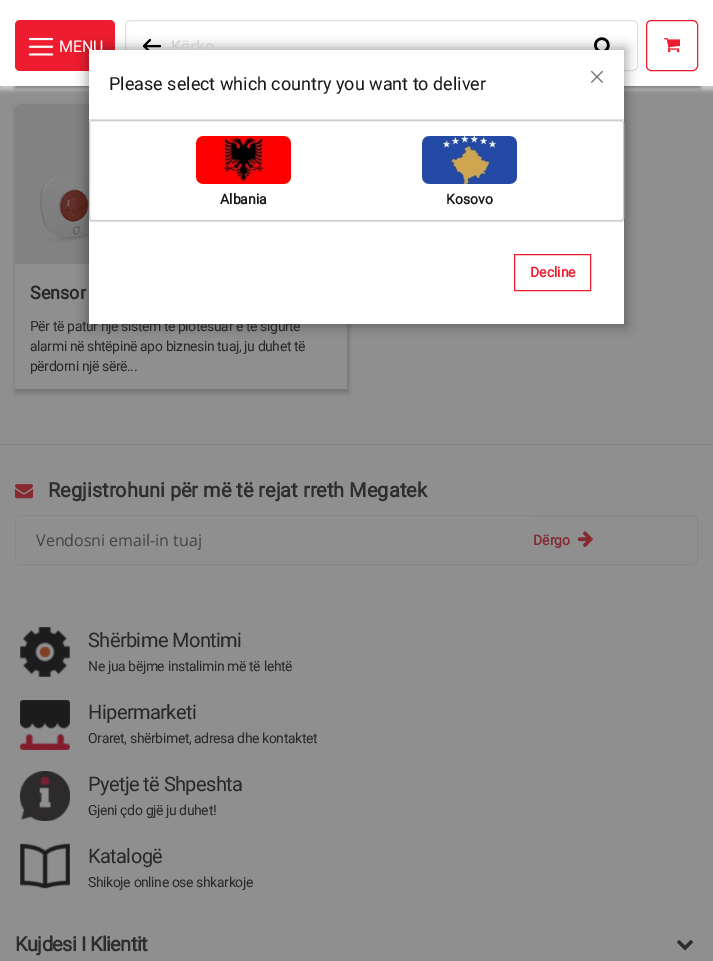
%!PS-Adobe-3.0
%%BoundingBox: 0 0 713 961
%%LanguageLevel: 3
%%Pages: 1
%%EndComments
%%BeginProlog
/setalpha { dup .setfillconstantalpha .setstrokeconstantalpha } def
/rrect { 5 dict begin { /r /h /w /y /x } { exch def } forall
  x r add y moveto x w add y 2 copy h add r arct x w add y h add x 1 index r arct
  x y h add x y r arct x y 2 copy exch w add exch r arct closepath end } def
/softshadow { 12 dict begin { /a /b /q /h /w /y /x } { exch def } forall gsave /was 0 def
  9 -2 -9 { dup b mul 4 div /e exch def 1 sub .425 mul 2.718 exch exp 1 add a .99 .min exch div /now exch def
    1 1 now sub 1 was sub div sub setalpha /was now def
    w h .min e 2 mul add 0 gt { x e sub y e sub w e 2 mul add h e 2 mul add
      q e add b .6 mul add w h .min 2 div e add .min 0 .max rrect fill } if } for grestore end } def
/drawimage { 5 dict begin { /h /w /y /x /name } { exch def } forall
  gsave x y translate w h scale
  w h 8 [w 0 0 h 0 0] name (r) file false 3 colorimage grestore end } def
%%EndProlog
%%BeginSetup
<< /PageSize [713 961] /PageUsesTransparency true >> setpagedevice
%%EndSetup
%%Page: 1 1
0 .pushpdf14devicefilter
0 961 translate 1 -1 scale
4 setmiterlimit
0.561 setgray
0 0 713 961 rectfill
0.784 setgray
0 2 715 88 0 2 1 softshadow
0.463 setgray
15 -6 334 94 0 2 1 softshadow
367 -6 333 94 0 2 1 softshadow
1 setgray
0 0 713 86 rectfill
0.929 0.11 0.18 setrgbcolor
15 20 100 51 5 rrect fill
(images/1.raw) 28 37 26 19 drawimage
0.886 setgray
125.5 20.5 512 50 4.5 rrect stroke
0 setgray
2 setlinewidth
1 setlinecap
1 setlinejoin
newpath 160 46 moveto 144 46 lineto 150 52 moveto 144 46 lineto 150 40 lineto stroke
(images/2.raw) 594 37 16 13 drawimage
0.929 0.11 0.18 setrgbcolor
1 setlinewidth
0 setlinecap
0 setlinejoin
646.5 20.5 51 50 4.5 rrect stroke
(images/3.raw) 664 38 16 15 drawimage
gsave
newpath 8 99 moveto 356 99 lineto 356 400 lineto 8 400 lineto closepath 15 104 moveto 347 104 lineto 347 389 lineto 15 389 lineto closepath eoclip newpath
0.463 setgray
15 106 334 287 0 2 1 softshadow
grestore
(images/4.raw) 15 104 74 160 drawimage
0.51 setgray
0 444 713 1 rectfill
(images/5.raw) 15 484 18 15 drawimage
0.529 setgray
15.5 515.5 682 49 4.5 rrect stroke
0.561 setgray
16 516 518 48 1 rrect fill
(images/6.raw) 578 531 15 16 drawimage
(images/7.raw) 20 627 50 50 drawimage
(images/8.raw) 20 700 50 50 drawimage
(images/9.raw) 20 771 50 50 drawimage
(images/10.raw) 20 843 50 46 drawimage
(images/11.raw) 676 940 18 11 drawimage
0 setgray
87 48 539 278 0 6 0.35 softshadow
/Roboto-Regular [16 0 0 -16 0 0] selectfont
1 setgray
59 52 moveto (MENU) show
/OpenSans-Regular [16 0 0 -16 0 0] selectfont
0.784 setgray
171 52 moveto (Kërko) show
/Roboto-Bold [18 0 0 -18 0 0] selectfont
0.157 0.149 0.157 setrgbcolor
30 299 moveto (Sensor) show
/Roboto-Regular [14 0 0 -14 0 0] selectfont
30 331 moveto -0.4 0 (Për të patur një sistem të plotësuar e të sigurtë) ashow
30 351 moveto -0.4 0 (alarmi në shtëpinë apo biznesin tuaj, ju duhet të) ashow
30 371 moveto -0.4 0 (përdorni një sërë...) ashow
/Roboto-Bold [20 0 0 -20 0 0] selectfont
0.169 0.176 0.184 setrgbcolor
48 497 moveto (Regjistrohuni për më të rejat rreth Megatek) show
/OpenSans-Regular [16 0 0 -16 0 0] selectfont
0.263 setgray
36 546 moveto (Vendosni email-in tuaj) show
/Roboto-Bold [14 0 0 -14 0 0] selectfont
0.529 0.161 0.192 setrgbcolor
533 545 moveto (Dërgo) show
/Roboto-Regular [20 0 0 -20 0 0] selectfont
0.157 0.149 0.157 setrgbcolor
88 647 moveto -0.6 0 (Shërbime Montimi) ashow
/Roboto-Regular [14 0 0 -14 0 0] selectfont
88 671 moveto -0.4 0 (Ne jua bëjme instalimin më të lehtë) ashow
/Roboto-Regular [20 0 0 -20 0 0] selectfont
88 719 moveto -0.6 0 (Hipermarketi) ashow
/Roboto-Regular [14 0 0 -14 0 0] selectfont
88 743 moveto -0.4 0 (Oraret, shërbimet, adresa dhe kontaktet) ashow
/Roboto-Regular [20 0 0 -20 0 0] selectfont
88 791 moveto -0.6 0 (Pyetje të Shpeshta) ashow
/Roboto-Regular [14 0 0 -14 0 0] selectfont
88 815 moveto -0.4 0 (Gjeni çdo gjë ju duhet!) ashow
/Roboto-Regular [20 0 0 -20 0 0] selectfont
88 863 moveto -0.6 0 (Katalogë) ashow
/Roboto-Regular [14 0 0 -14 0 0] selectfont
88 887 moveto -0.4 0 (Shikoje online ose shkarkoje) ashow
/Roboto-Bold [20 0 0 -20 0 0] selectfont
0.169 0.176 0.184 setrgbcolor
15 951 moveto -0.6 0 (Kujdesi I Klientit) ashow
1 setgray
89 50 535 274 rectfill
0.871 0.886 0.902 setrgbcolor
89 119 535 1 rectfill
/Roboto-Regular [18 0 0 -18 0 0] selectfont
0.102 0.09 0.106 setrgbcolor
109 90 moveto (Please select which country you want to deliver) show
(images/12.raw) 590 70 14 13 drawimage
0.8 setgray
89.5 120.5 534 100 2.5 rrect stroke
(images/13.raw) 196 136 95 48 drawimage
/Roboto-Bold [14 0 0 -14 0 0] selectfont
0.102 0.09 0.106 setrgbcolor
220 204 moveto (Albania) show
(images/14.raw) 422 136 95 48 drawimage
446 204 moveto (Kosovo) show
0.871 0.886 0.902 setrgbcolor
89 221 535 1 rectfill
0.929 0.11 0.18 setrgbcolor
514.5 254.5 76 36 rectstroke
530 277 moveto (Decline) show
.poppdf14devicefilter showpage
%%EOF
